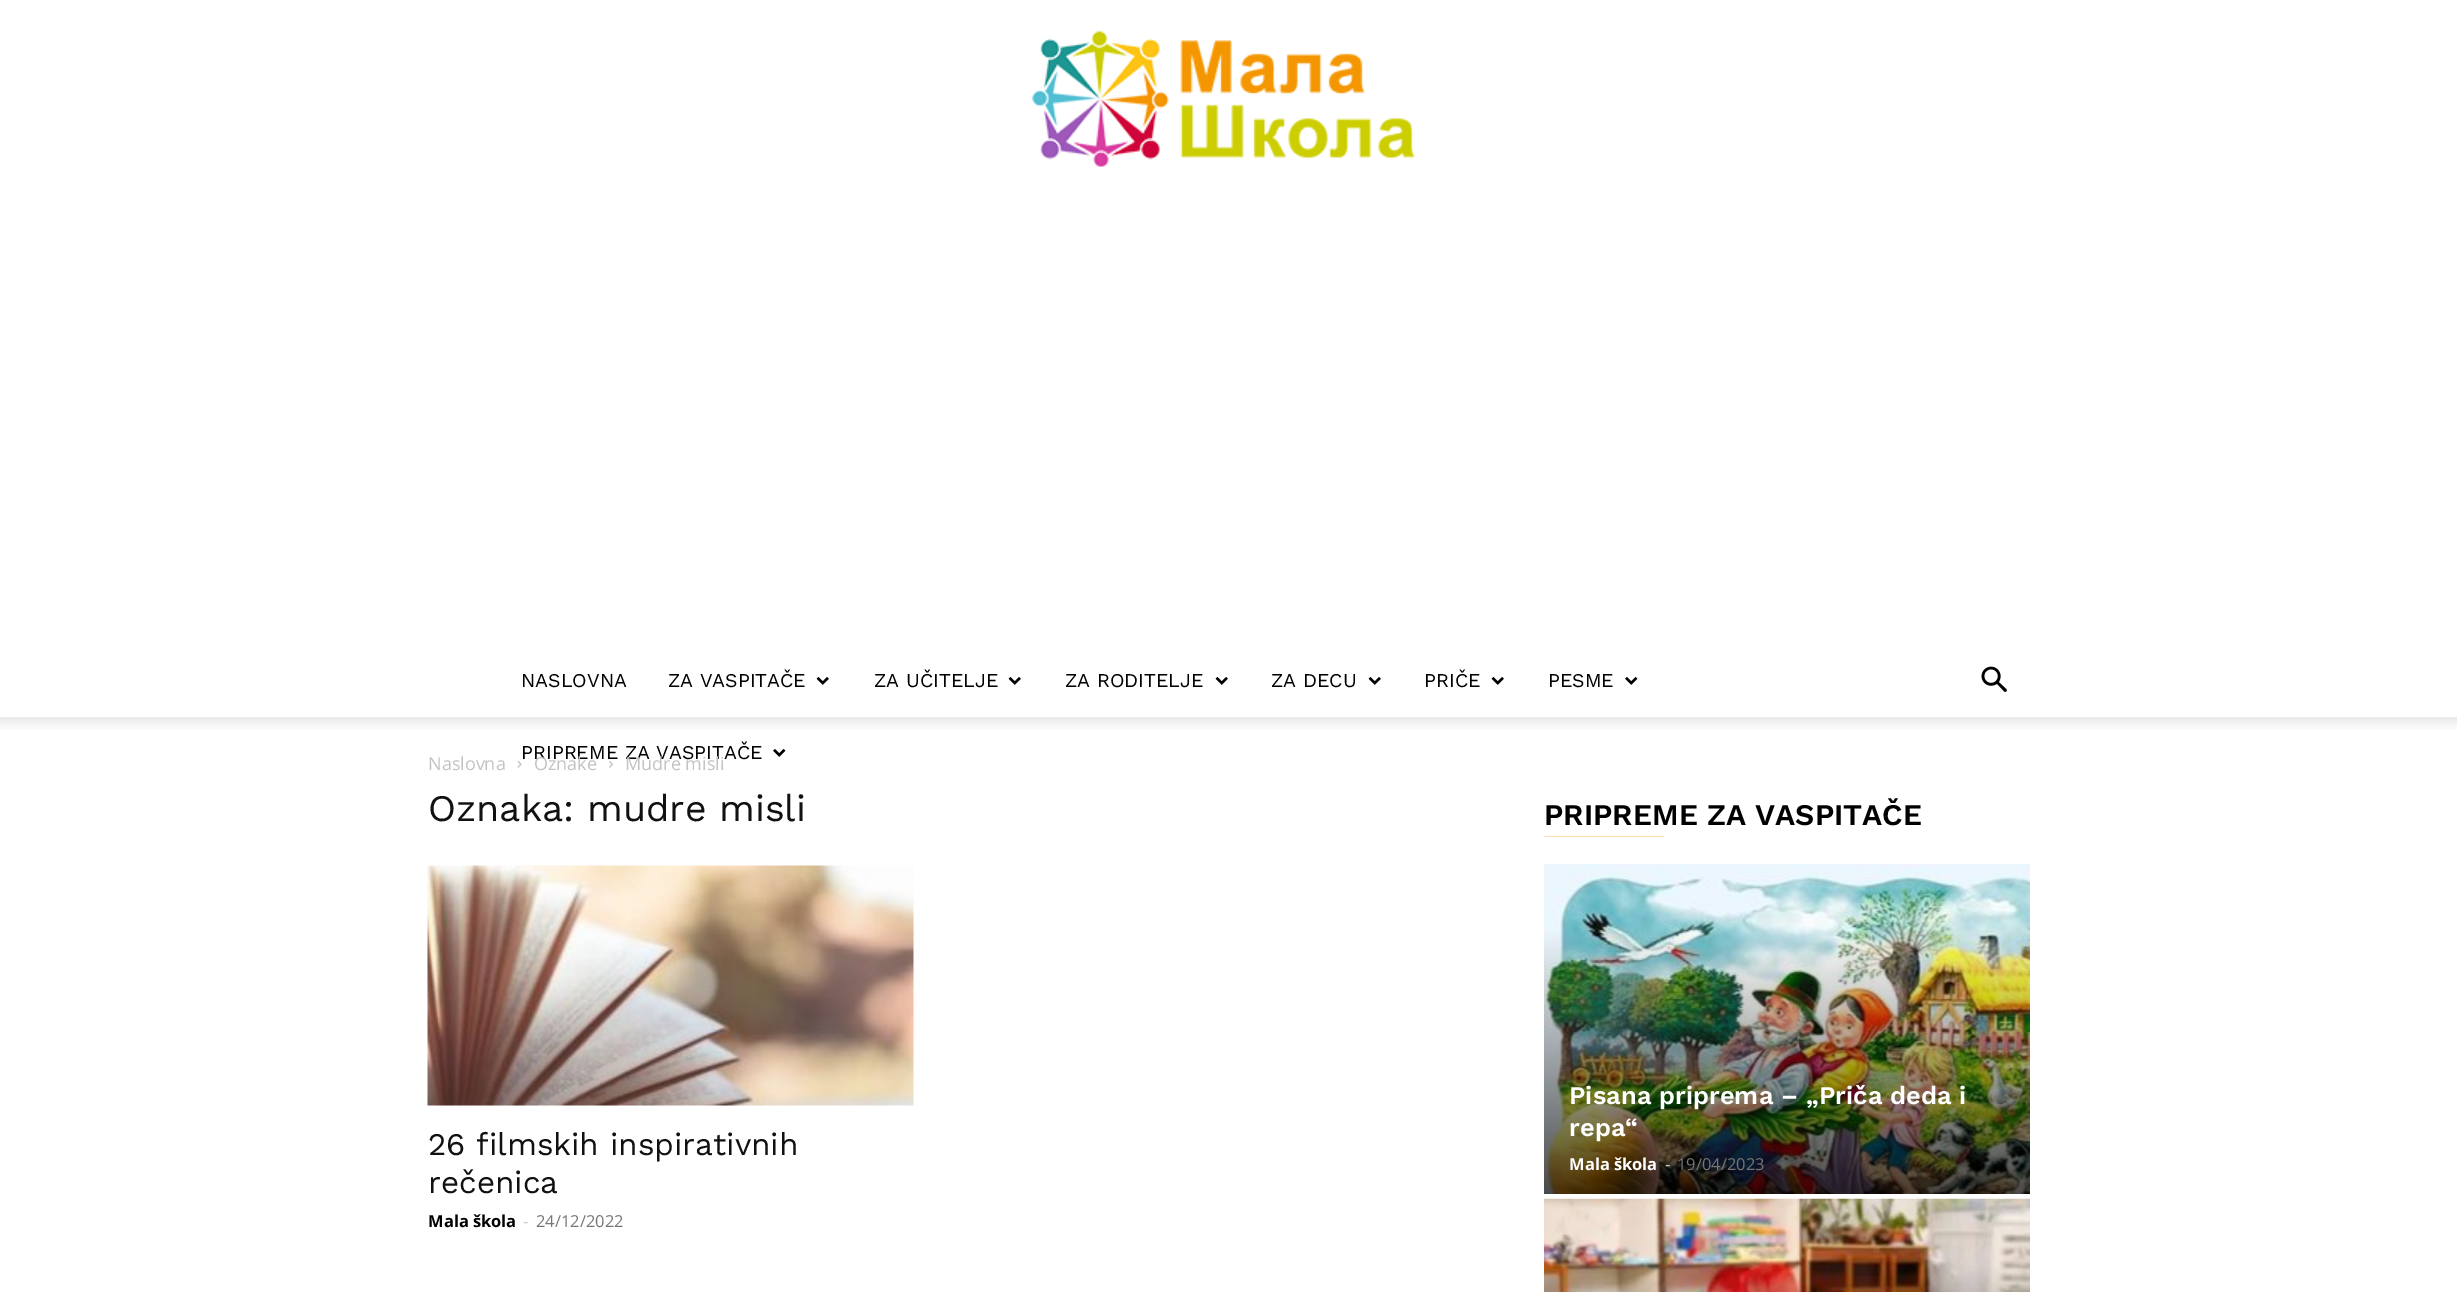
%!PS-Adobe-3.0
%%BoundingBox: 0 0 2457 1292
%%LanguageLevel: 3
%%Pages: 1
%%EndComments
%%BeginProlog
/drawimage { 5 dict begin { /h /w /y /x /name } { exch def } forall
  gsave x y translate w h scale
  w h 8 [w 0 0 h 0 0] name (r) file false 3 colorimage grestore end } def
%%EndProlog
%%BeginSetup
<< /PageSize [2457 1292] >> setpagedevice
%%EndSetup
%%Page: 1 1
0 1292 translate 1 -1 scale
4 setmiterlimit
1 setgray
0 0 2457 1292 rectfill
(images/1.raw) 1031 31 384 136 drawimage
(images/2.raw) 816 677 13 8 drawimage
(images/2.raw) 1008 677 13 8 drawimage
(images/2.raw) 1215 677 13 8 drawimage
(images/2.raw) 1368 677 13 8 drawimage
(images/2.raw) 1491 677 13 8 drawimage
(images/3.raw) 1625 677 13 8 drawimage
(images/3.raw) 773 749 13 8 drawimage
(images/4.raw) 1981 666 26 26 drawimage
(images/5.raw) 0 717 2457 13 drawimage
(images/6.raw) 517 761 5 7 drawimage
(images/7.raw) 609 761 4 7 drawimage
(images/8.raw) 427 865 487 241 drawimage
0.988 0.878 0.702 setrgbcolor
1544 836 120 1 rectfill
(images/9.raw) 1544 864 486 330 drawimage
(images/10.raw) 1544 1198 486 94 drawimage
/WorkSans-Regular [19.5 0 0 -19.5 0 0] selectfont
0 setgray
521 687 moveto (NASLOVNA) show
668 687 moveto (ZA VASPITAČE) show
874 687 moveto (ZA UČITELJE) show
1065 687 moveto (ZA RODITELJE) show
1271 687 moveto (ZA DECU) show
1424 687 moveto (PRIČE) show
1548 687 moveto (PESME) show
521 759 moveto (PRIPREME ZA VASPITAČE) show
/OpenSans-Regular [18 0 0 -18 0 0] selectfont
0.765 setgray
428 770 moveto (Naslovna) show
534 770 moveto (Oznake) show
625 770 moveto (Mudre misli) show
/WorkSans-Regular [37.5 0 0 -37.5 0 0] selectfont
0.067 setgray
428 821 moveto (Oznaka: mudre misli) show
/WorkSans-Regular [31.5 0 0 -31.5 0 0] selectfont
428 1155 moveto (26 filmskih inspirativnih) show
428 1193 moveto (rečenica) show
/OpenSans-Bold [16.5 0 0 -16.5 0 0] selectfont
0 setgray
428 1227 moveto (Mala škola) show
/OpenSans-Regular [16.5 0 0 -16.5 0 0] selectfont
0.8 setgray
523 1227 moveto (-) show
0.463 setgray
536 1227 moveto (24/12/2022) show
/WorkSans-SemiBold [30 0 0 -30 0 0] selectfont
0 setgray
1544 825 moveto (PRIPREME ZA VASPITAČE) show
/WorkSans-SemiBold [25.5 0 0 -25.5 0 0] selectfont
1 setgray
1569 1104 moveto (Pisana priprema – „Priča deda i) show
1569 1136 moveto (repa“) show
/OpenSans-Bold [16.5 0 0 -16.5 0 0] selectfont
1569 1170 moveto (Mala škola) show
/OpenSans-Regular [16.5 0 0 -16.5 0 0] selectfont
0.8 setgray
1665 1170 moveto (-) show
0.463 setgray
1677 1170 moveto (19/04/2023) show
showpage
%%EOF
